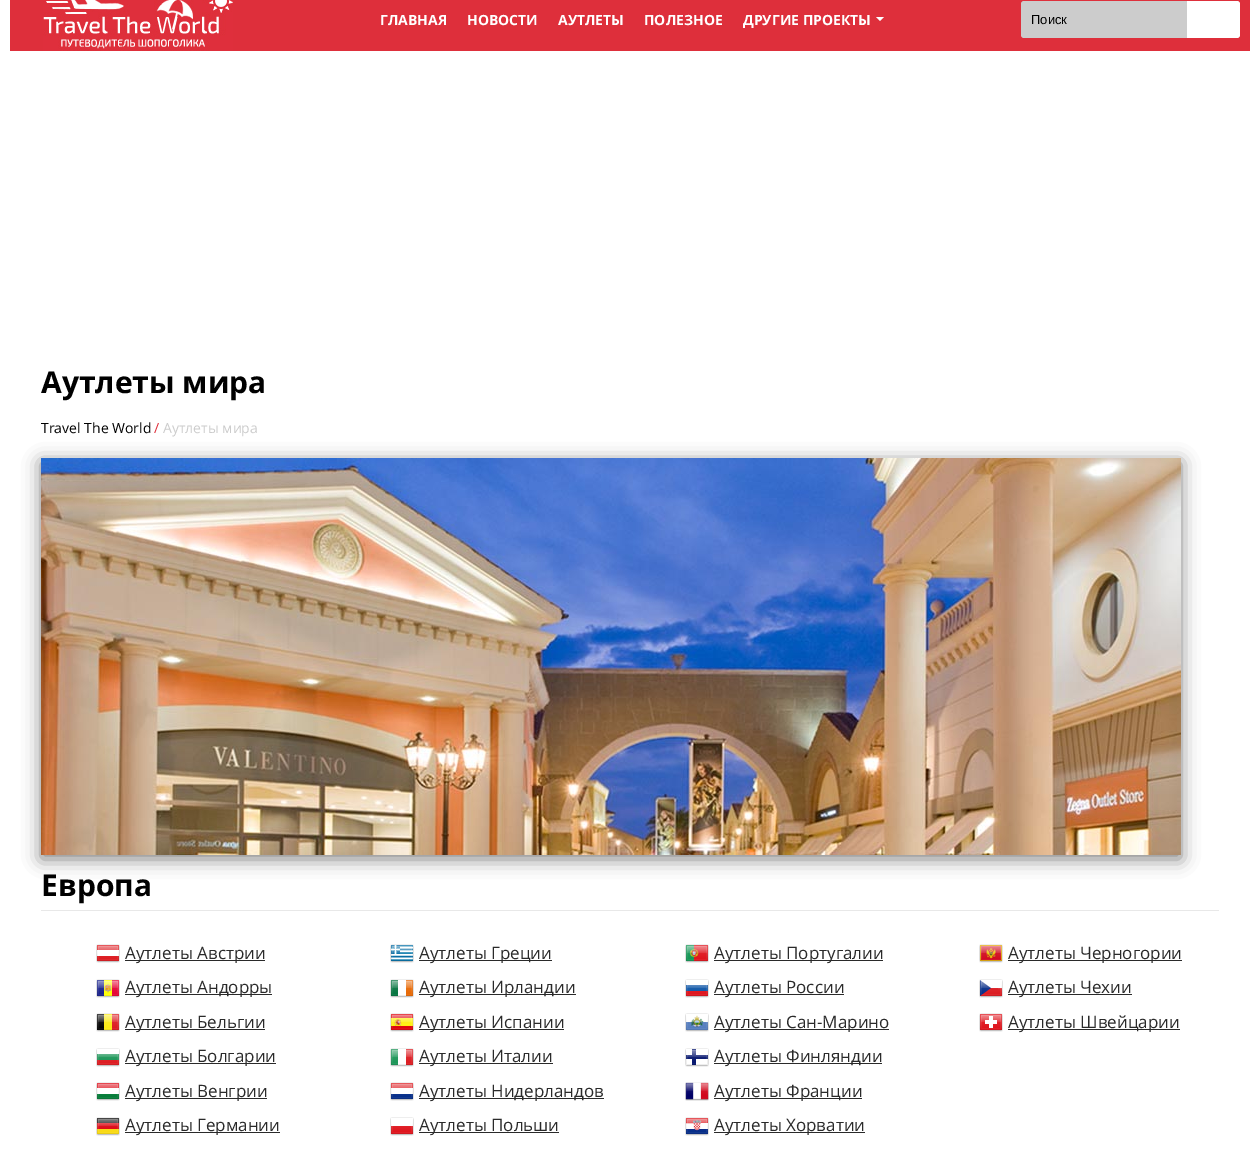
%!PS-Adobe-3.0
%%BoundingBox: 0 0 1259 1168
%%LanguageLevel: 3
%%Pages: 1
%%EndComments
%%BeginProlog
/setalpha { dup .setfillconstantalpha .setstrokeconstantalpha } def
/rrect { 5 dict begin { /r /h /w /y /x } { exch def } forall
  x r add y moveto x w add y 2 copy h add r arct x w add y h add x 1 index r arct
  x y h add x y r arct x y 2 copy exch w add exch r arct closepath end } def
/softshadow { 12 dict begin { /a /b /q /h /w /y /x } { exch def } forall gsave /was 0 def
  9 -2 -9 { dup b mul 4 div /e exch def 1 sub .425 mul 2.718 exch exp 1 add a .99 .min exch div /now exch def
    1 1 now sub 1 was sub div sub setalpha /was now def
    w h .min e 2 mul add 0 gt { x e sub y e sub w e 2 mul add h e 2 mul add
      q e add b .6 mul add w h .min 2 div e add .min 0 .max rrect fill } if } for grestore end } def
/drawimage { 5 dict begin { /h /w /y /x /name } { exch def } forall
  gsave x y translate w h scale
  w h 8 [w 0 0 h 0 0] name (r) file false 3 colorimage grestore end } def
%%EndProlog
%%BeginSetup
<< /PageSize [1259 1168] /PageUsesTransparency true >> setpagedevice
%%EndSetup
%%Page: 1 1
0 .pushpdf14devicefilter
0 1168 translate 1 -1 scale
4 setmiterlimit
1 setgray
0 0 1259 1168 rectfill
0.871 0.184 0.231 setrgbcolor
10 0 1240 51 rectfill
(images/1.raw) 43 0 190 51 drawimage
1 setgray
newpath 876 17 moveto 884 17 lineto 880 21 lineto closepath fill
0.8 setgray
newpath 1024 1 moveto 1187 1 lineto 1187 38 lineto 1024 38 lineto 1022.5 38 1021 36.5 1021 35 curveto 1021 4 lineto 1021 2.5 1022.5 1 1024 1 curveto closepath fill
1 setgray
newpath 1187 1 moveto 1237 1 lineto 1238.5 1 1240 2.5 1240 4 curveto 1240 35 lineto 1240 36.5 1238.5 38 1237 38 curveto 1187 38 lineto closepath fill
0 setgray
41 462 1140 397 0 9 0.5 softshadow
(images/2.raw) 41 458 1140 397 drawimage
0.91 setgray
41 910 1178 1 rectfill
(images/3.raw) 96 944 24 19 drawimage
0.165 setgray
125 960 140 1 rectfill
(images/4.raw) 96 979 24 19 drawimage
125 994 147 1 rectfill
(images/5.raw) 96 1013 24 19 drawimage
125 1029 140 1 rectfill
(images/6.raw) 96 1048 24 19 drawimage
125 1063 151 1 rectfill
(images/7.raw) 96 1082 24 19 drawimage
125 1098 142 1 rectfill
(images/8.raw) 96 1117 24 19 drawimage
125 1132 155 1 rectfill
(images/9.raw) 390 944 24 19 drawimage
419 960 133 1 rectfill
(images/10.raw) 390 979 24 19 drawimage
419 994 157 1 rectfill
(images/11.raw) 390 1013 24 19 drawimage
419 1029 145 1 rectfill
(images/12.raw) 390 1048 24 19 drawimage
419 1063 134 1 rectfill
(images/13.raw) 390 1082 24 19 drawimage
419 1098 185 1 rectfill
(images/14.raw) 390 1117 24 19 drawimage
419 1132 140 1 rectfill
(images/15.raw) 685 944 24 19 drawimage
714 960 169 1 rectfill
(images/16.raw) 685 979 24 19 drawimage
714 994 130 1 rectfill
(images/17.raw) 685 1013 24 19 drawimage
714 1029 175 1 rectfill
(images/18.raw) 685 1048 24 19 drawimage
714 1063 168 1 rectfill
(images/19.raw) 685 1082 24 19 drawimage
714 1098 148 1 rectfill
(images/20.raw) 685 1117 24 19 drawimage
714 1132 151 1 rectfill
(images/21.raw) 979 944 24 19 drawimage
1008 960 174 1 rectfill
(images/22.raw) 979 979 24 19 drawimage
1008 994 124 1 rectfill
(images/23.raw) 979 1013 24 19 drawimage
1008 1029 172 1 rectfill
/OpenSans-Bold [14 0 0 -14 0 0] selectfont
1 setgray
380 25 moveto (ГЛАВНАЯ) show
467 25 moveto (НОВОСТИ) show
558 25 moveto (АУТЛЕТЫ) show
644 25 moveto (ПОЛЕЗНОЕ) show
743 25 moveto (ДРУГИЕ ПРОЕКТЫ) show
/LiberationSans-Regular [13 0 0 -13 0 0] selectfont
0 setgray
1031 24 moveto (Поиск) show
/OpenSans-Bold [30 0 0 -30 0 0] selectfont
41 393 moveto (Аутлеты мира) show
/OpenSans-Regular [14 0 0 -14 0 0] selectfont
41 433 moveto (Travel The World) show
0.871 0.184 0.231 setrgbcolor
154 433 moveto (/) show
0.8 setgray
163 433 moveto (Аутлеты мира) show
/OpenSans-Bold [30 0 0 -30 0 0] selectfont
0 setgray
41 896 moveto (Европа) show
/OpenSans-Regular [17 0 0 -17 0 0] selectfont
0.165 setgray
125 959 moveto (Аутлеты Австрии) show
125 993 moveto (Аутлеты Андорры) show
125 1028 moveto (Аутлеты Бельгии) show
125 1062 moveto (Аутлеты Болгарии) show
125 1097 moveto (Аутлеты Венгрии) show
125 1131 moveto (Аутлеты Германии) show
419 959 moveto (Аутлеты Греции) show
419 993 moveto (Аутлеты Ирландии) show
419 1028 moveto (Аутлеты Испании) show
419 1062 moveto (Аутлеты Италии) show
419 1097 moveto (Аутлеты Нидерландов) show
419 1131 moveto (Аутлеты Польши) show
714 959 moveto (Аутлеты Португалии) show
714 993 moveto (Аутлеты России) show
714 1028 moveto (Аутлеты Сан-Марино) show
714 1062 moveto (Аутлеты Финляндии) show
714 1097 moveto (Аутлеты Франции) show
714 1131 moveto (Аутлеты Хорватии) show
1008 959 moveto (Аутлеты Черногории) show
1008 993 moveto (Аутлеты Чехии) show
1008 1028 moveto (Аутлеты Швейцарии) show
.poppdf14devicefilter showpage
%%EOF
